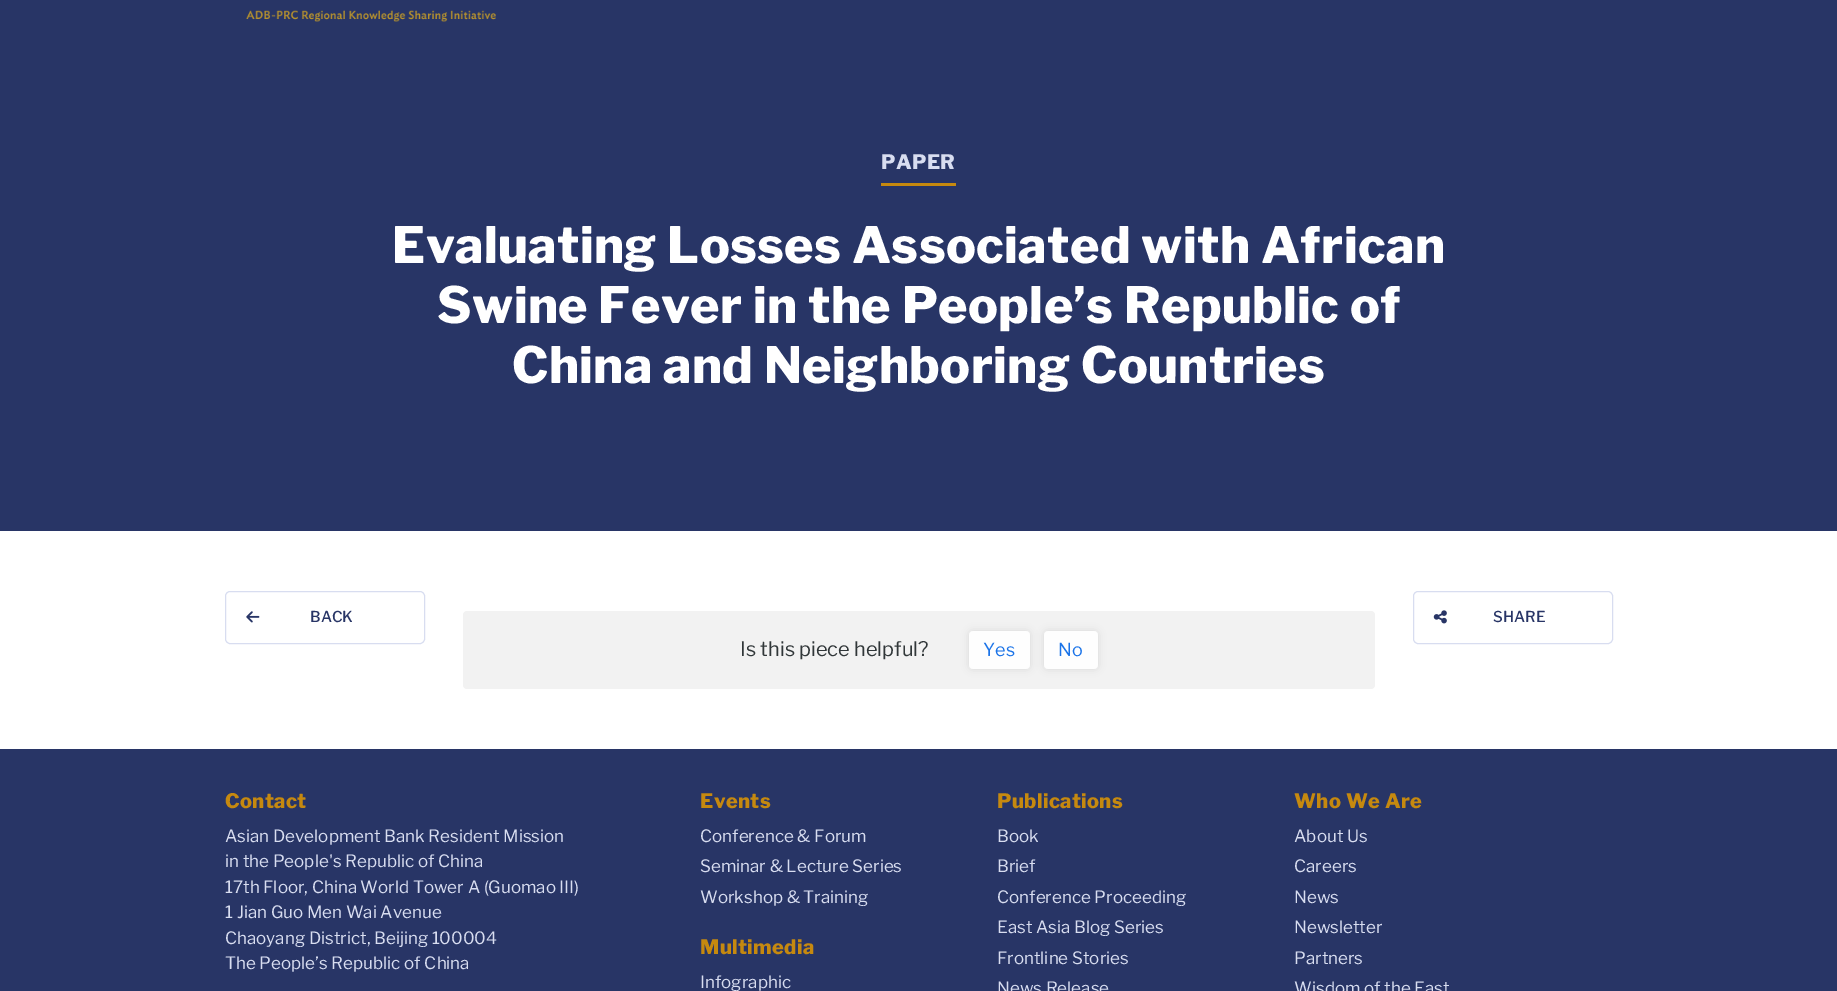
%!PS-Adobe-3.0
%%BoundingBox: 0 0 1837 991
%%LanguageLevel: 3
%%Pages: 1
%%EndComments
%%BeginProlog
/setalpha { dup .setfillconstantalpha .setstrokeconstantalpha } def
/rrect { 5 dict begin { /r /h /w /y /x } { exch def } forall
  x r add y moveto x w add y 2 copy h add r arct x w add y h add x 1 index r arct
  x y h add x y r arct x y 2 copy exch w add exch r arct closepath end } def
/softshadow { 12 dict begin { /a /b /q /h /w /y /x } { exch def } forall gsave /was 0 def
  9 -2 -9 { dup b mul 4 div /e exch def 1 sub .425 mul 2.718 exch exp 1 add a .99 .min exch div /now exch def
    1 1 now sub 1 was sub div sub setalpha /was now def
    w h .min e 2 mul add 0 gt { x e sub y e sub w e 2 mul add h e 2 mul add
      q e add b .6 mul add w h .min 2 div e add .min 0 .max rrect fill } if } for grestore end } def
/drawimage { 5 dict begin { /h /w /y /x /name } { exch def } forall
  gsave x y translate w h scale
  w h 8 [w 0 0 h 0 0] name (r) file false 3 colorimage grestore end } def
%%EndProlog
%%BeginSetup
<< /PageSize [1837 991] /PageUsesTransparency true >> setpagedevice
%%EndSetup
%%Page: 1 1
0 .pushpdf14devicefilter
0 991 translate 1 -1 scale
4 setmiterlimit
1 setgray
0 0 1837 991 rectfill
0.157 0.208 0.4 setrgbcolor
0 0 1837 531 rectfill
(images/1.raw) 246 10 250 12 drawimage
0.776 0.537 0.059 setrgbcolor
881 183 75 3 rectfill
0.847 0.867 0.941 setrgbcolor
225.5 591.5 199 52 4.5 rrect stroke
(images/2.raw) 246 611 14 12 drawimage
1413.5 591.5 199 52 4.5 rrect stroke
(images/3.raw) 1433 610 14 14 drawimage
0.949 setgray
463 611 912 78 4 rrect fill
gsave
newpath 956 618 moveto 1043 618 lineto 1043 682 lineto 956 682 lineto closepath 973 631 moveto 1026 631 lineto 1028 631 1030 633 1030 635 curveto 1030 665 lineto 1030 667 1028 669 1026 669 curveto 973 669 lineto 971 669 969 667 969 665 curveto 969 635 lineto 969 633 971 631 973 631 curveto closepath eoclip newpath
0 setgray
969 631 61 38 4 4 0.1 softshadow
grestore
0.9 setalpha
1 setgray
969 631 61 38 4 rrect fill
gsave
newpath 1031 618 moveto 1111 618 lineto 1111 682 lineto 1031 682 lineto closepath 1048 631 moveto 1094 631 lineto 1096 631 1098 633 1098 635 curveto 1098 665 lineto 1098 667 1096 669 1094 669 curveto 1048 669 lineto 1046 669 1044 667 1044 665 curveto 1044 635 lineto 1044 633 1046 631 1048 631 curveto closepath eoclip newpath
1 setalpha
0 setgray
1044 631 54 38 4 4 0.1 softshadow
grestore
1044 631 54 38 4 rrect fill
1 setalpha
0.157 0.208 0.4 setrgbcolor
0 749 1837 242 rectfill
/LibreFranklin-ExtraBold [20 0 0 -20 0 0] selectfont
0.847 0.867 0.941 setrgbcolor
881 169 moveto 0.4 0 (PAPER) ashow
/LibreFranklin-ExtraBold [50 0 0 -50 0 0] selectfont
1 setgray
392 263 moveto 0.4 0 (Evaluating Losses Associated with African) ashow
437 323 moveto 0.4 0 (Swine Fever in the People’s Republic of) ashow
512 383 moveto 0.4 0 (China and Neighboring Countries) ashow
/LibreFranklin-Medium [15 0 0 -15 0 0] selectfont
0.157 0.208 0.4 setrgbcolor
310 622 moveto (BACK) show
1493 622 moveto (SHARE) show
/LibreFranklin-Regular [20 0 0 -20 0 0] selectfont
0.192 0.216 0.224 setrgbcolor
740 656 moveto (Is this piece helpful?) show
/LibreFranklin-Regular [18 0 0 -18 0 0] selectfont
0.102 0.451 0.91 setrgbcolor
983 656 moveto (Yes) show
1058 656 moveto (No) show
/LibreFranklin-ExtraBold [20 0 0 -20 0 0] selectfont
0.776 0.537 0.059 setrgbcolor
225 808 moveto 0.4 0 (Contact) ashow
/LibreFranklin-Regular [17 0 0 -17 0 0] selectfont
0.847 0.867 0.941 setrgbcolor
225 842 moveto (Asian Development Bank Resident Mission) show
225 867 moveto (in the People's Republic of China) show
225 893 moveto (17th Floor, China World Tower A \(Guomao III\)) show
225 918 moveto (1 Jian Guo Men Wai Avenue) show
225 944 moveto (Chaoyang District, Beijing 100004) show
225 969 moveto (The People’s Republic of China) show
/LibreFranklin-ExtraBold [20 0 0 -20 0 0] selectfont
0.776 0.537 0.059 setrgbcolor
700 808 moveto 0.4 0 (Events) ashow
/LibreFranklin-Regular [17 0 0 -17 0 0] selectfont
0.847 0.867 0.941 setrgbcolor
700 842 moveto (Conference & Forum) show
700 872 moveto (Seminar & Lecture Series) show
700 903 moveto (Workshop & Training) show
/LibreFranklin-ExtraBold [20 0 0 -20 0 0] selectfont
0.776 0.537 0.059 setrgbcolor
700 954 moveto 0.4 0 (Multimedia) ashow
/LibreFranklin-Regular [17 0 0 -17 0 0] selectfont
0.847 0.867 0.941 setrgbcolor
700 988 moveto (Infographic) show
/LibreFranklin-ExtraBold [20 0 0 -20 0 0] selectfont
0.776 0.537 0.059 setrgbcolor
997 808 moveto 0.4 0 (Publications) ashow
/LibreFranklin-Regular [17 0 0 -17 0 0] selectfont
0.847 0.867 0.941 setrgbcolor
997 842 moveto (Book) show
997 872 moveto (Brief) show
997 903 moveto (Conference Proceeding) show
997 933 moveto (East Asia Blog Series) show
997 964 moveto (Frontline Stories) show
997 994 moveto (News Release) show
/LibreFranklin-ExtraBold [20 0 0 -20 0 0] selectfont
0.776 0.537 0.059 setrgbcolor
1294 808 moveto 0.4 0 (Who We Are) ashow
/LibreFranklin-Regular [17 0 0 -17 0 0] selectfont
0.847 0.867 0.941 setrgbcolor
1294 842 moveto (About Us) show
1294 872 moveto (Careers) show
1294 903 moveto (News) show
1294 933 moveto (Newsletter) show
1294 964 moveto (Partners) show
1294 994 moveto (Wisdom of the East) show
.poppdf14devicefilter showpage
%%EOF
